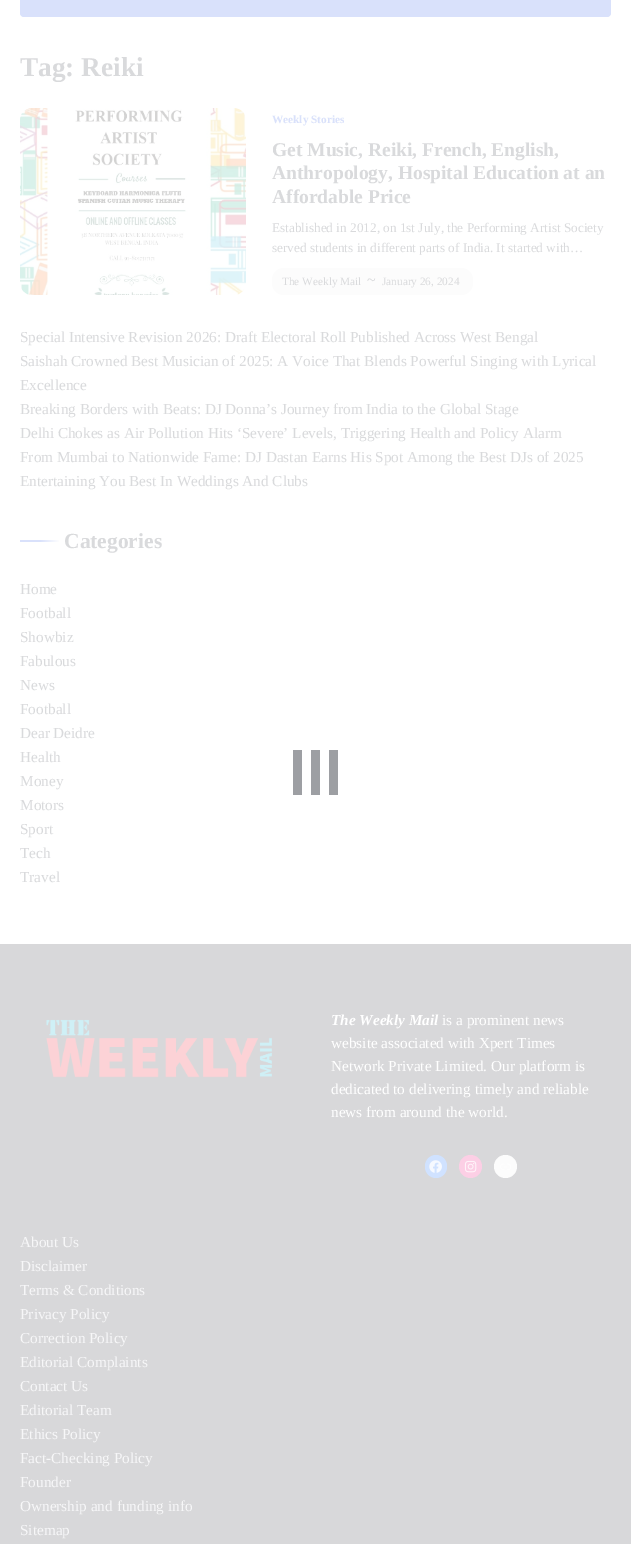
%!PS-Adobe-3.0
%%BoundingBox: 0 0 631 1544
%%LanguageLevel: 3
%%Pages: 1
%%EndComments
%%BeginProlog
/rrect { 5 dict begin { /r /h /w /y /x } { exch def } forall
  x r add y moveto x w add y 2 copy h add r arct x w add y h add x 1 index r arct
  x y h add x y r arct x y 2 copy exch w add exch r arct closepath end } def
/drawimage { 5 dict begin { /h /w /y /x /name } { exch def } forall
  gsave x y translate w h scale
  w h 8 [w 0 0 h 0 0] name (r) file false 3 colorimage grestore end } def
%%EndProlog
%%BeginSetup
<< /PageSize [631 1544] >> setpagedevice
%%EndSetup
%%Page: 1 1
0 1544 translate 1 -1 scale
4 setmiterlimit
1 setgray
0 0 631 1544 rectfill
0.851 0.882 0.984 setrgbcolor
20 -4 591 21 4 rrect fill
(images/1.raw) 20 108 226 187 drawimage
0.988 setgray
272 268 201 27 12 rrect fill
gsave newpath 20 540 moveto 60 540 lineto 60 542 lineto 20 542 lineto closepath clip newpath
<< /ShadingType 2 /ColorSpace /DeviceRGB /Coords [20 541 60 541] /Extend [true true] /Function << /FunctionType 3 /Domain [0 1] /Functions [<< /FunctionType 2 /Domain [0 1] /C0 [0.851 0.882 0.984] /C1 [0.851 0.882 0.984] /N 1 >> << /FunctionType 2 /Domain [0 1] /C0 [0.851 0.882 0.984] /C1 [1 1 1] /N 1 >>] /Bounds [0.5] /Encode [0 1 0 1] >> >> shfill grestore
0.616 0.624 0.639 setrgbcolor
329 750 9 45 rectfill
311 750 9 45 rectfill
293 750 9 45 rectfill
0.847 0.847 0.855 setrgbcolor
0 944 631 600 rectfill
(images/2.raw) 46 1019 226 59 drawimage
0.816 0.886 1 setrgbcolor
425 1155 22 23 11 rrect fill
(images/3.raw) 429 1160 13 13 drawimage
0.988 0.812 0.898 setrgbcolor
newpath 470.5 1166.5 11.5 0 360 arc closepath fill
(images/4.raw) 464 1160 13 13 drawimage
0.988 setgray
newpath 505.5 1166.5 11.5 0 360 arc closepath fill
(images/5.raw) 500 1163 11 7 drawimage
/LiberationSerif-Bold [27.25 0 0 -27.25 0 0] selectfont
0.851 0.855 0.863 setrgbcolor
20 76 moveto (Tag: Reiki) show
/LiberationSerif-Bold [11.25 0 0 -11.25 0 0] selectfont
0.851 0.882 0.984 setrgbcolor
272 123 moveto (Weekly Stories) show
/LiberationSerif-Bold [19.5 0 0 -19.5 0 0] selectfont
0.851 0.855 0.863 setrgbcolor
272 156 moveto (Get Music, Reiki, French, English,) show
272 179 moveto (Anthropology, Hospital Education at an) show
272 203 moveto (Affordable Price) show
/LiberationSerif-Regular [13.25 0 0 -13.25 0 0] selectfont
272 232 moveto (Established in 2012, on 1st July, the Performing Artist Society) show
272 252 moveto (served students in different parts of India. It started with…) show
/LiberationSerif-Regular [11.25 0 0 -11.25 0 0] selectfont
282 285 moveto (The Weekly Mail) show
/LiberationSerif-Regular [16 0 0 -16 0 0] selectfont
367 285 moveto (~) show
/LiberationSerif-Regular [11.25 0 0 -11.25 0 0] selectfont
382 285 moveto (January 26, 2024) show
/LiberationSerif-Regular [15.25 0 0 -15.25 0 0] selectfont
20 342 moveto (Special Intensive Revision 2026: Draft Electoral Roll Published Across West Bengal) show
20 366 moveto (Saishah Crowned Best Musician of 2025: A Voice That Blends Powerful Singing with Lyrical) show
20 390 moveto (Excellence) show
20 414 moveto (Breaking Borders with Beats: DJ Donna’s Journey from India to the Global Stage) show
20 438 moveto (Delhi Chokes as Air Pollution Hits ‘Severe’ Levels, Triggering Health and Policy Alarm) show
20 462 moveto (From Mumbai to Nationwide Fame: DJ Dastan Earns His Spot Among the Best DJs of 2025) show
20 486 moveto (Entertaining You Best In Weddings And Clubs) show
/LiberationSerif-Bold [21.5 0 0 -21.5 0 0] selectfont
64 548 moveto (Categories) show
/LiberationSerif-Regular [15.25 0 0 -15.25 0 0] selectfont
20 594 moveto (Home) show
20 618 moveto (Football) show
20 642 moveto (Showbiz) show
20 666 moveto (Fabulous) show
20 690 moveto (News) show
20 714 moveto (Football) show
20 738 moveto (Dear Deidre) show
20 762 moveto (Health) show
20 786 moveto (Money) show
20 810 moveto (Motors) show
20 834 moveto (Sport) show
20 858 moveto (Tech) show
20 882 moveto (Travel) show
/LiberationSerif-BoldItalic [15.25 0 0 -15.25 0 0] selectfont
1 setgray
331 1025 moveto (The Weekly Mail) show
/LiberationSerif-Regular [15.25 0 0 -15.25 0 0] selectfont
442 1025 moveto (is a prominent news) show
331 1048 moveto (website associated with Xpert Times) show
331 1071 moveto (Network Private Limited. Our platform is) show
331 1094 moveto (dedicated to delivering timely and reliable) show
331 1117 moveto (news from around the world.) show
0.969 0.969 0.973 setrgbcolor
20 1247 moveto (About Us) show
20 1271 moveto (Disclaimer) show
20 1295 moveto (Terms & Conditions) show
20 1319 moveto (Privacy Policy) show
20 1343 moveto (Correction Policy) show
20 1367 moveto (Editorial Complaints) show
20 1391 moveto (Contact Us) show
20 1415 moveto (Editorial Team) show
20 1439 moveto (Ethics Policy) show
20 1463 moveto (Fact-Checking Policy) show
20 1487 moveto (Founder) show
20 1511 moveto (Ownership and funding info) show
20 1535 moveto (Sitemap) show
showpage
%%EOF
